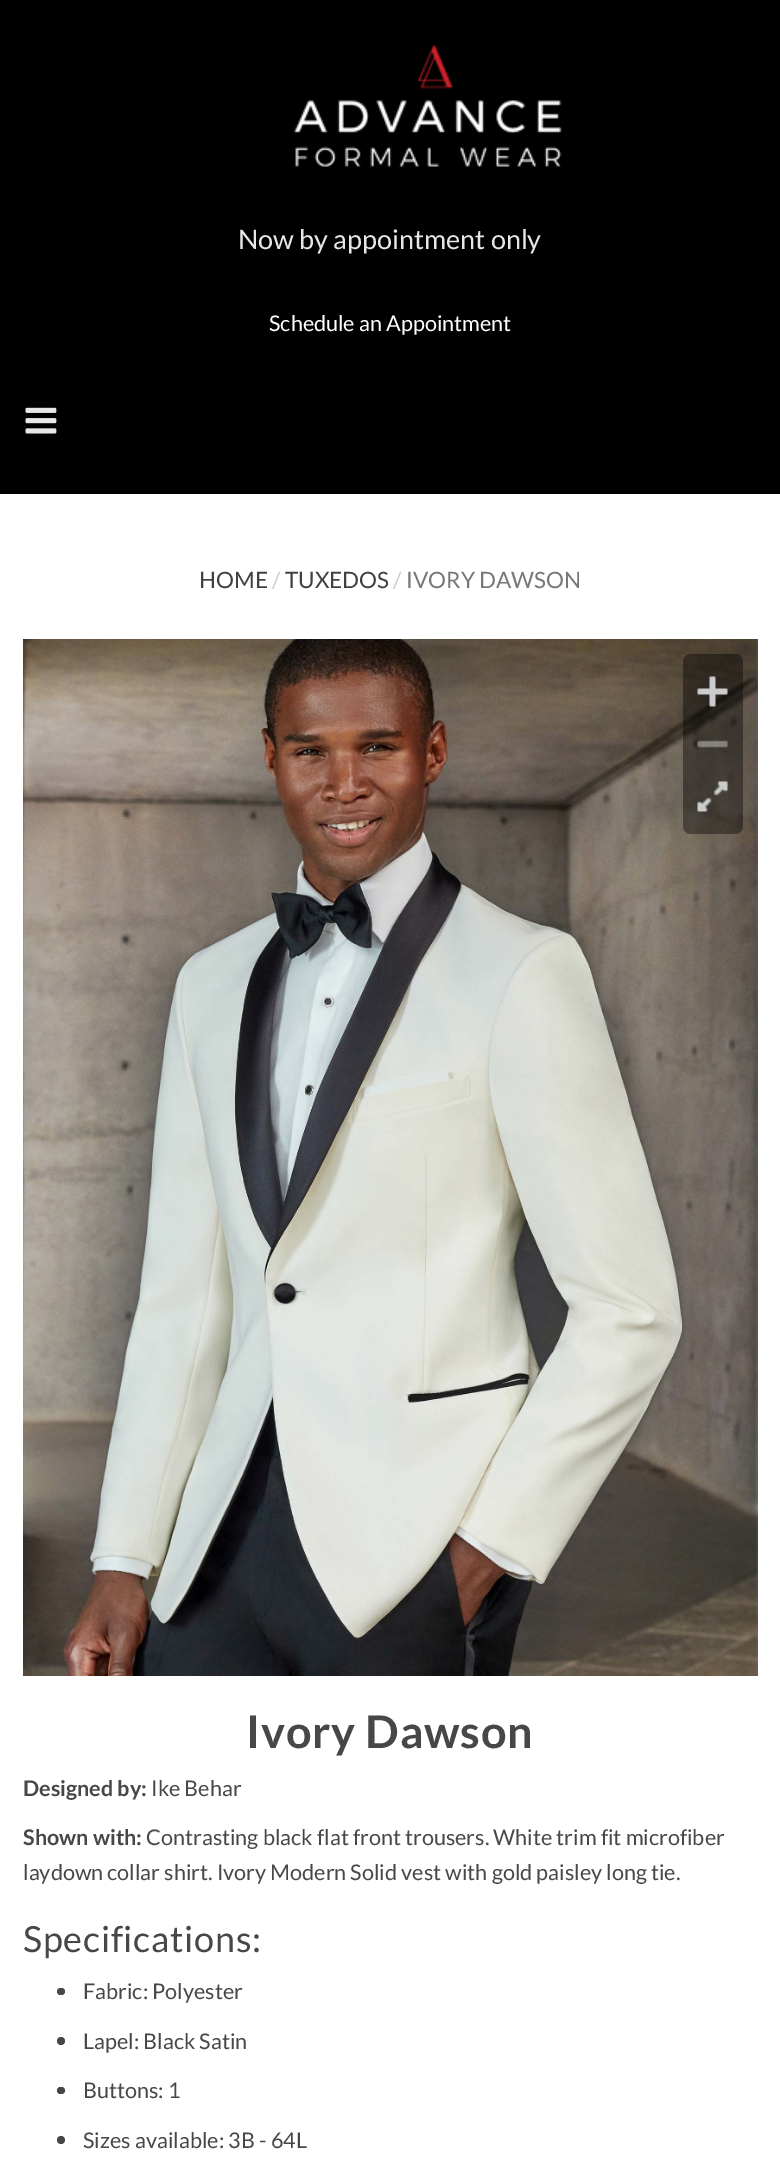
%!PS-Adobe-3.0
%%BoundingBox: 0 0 780 2163
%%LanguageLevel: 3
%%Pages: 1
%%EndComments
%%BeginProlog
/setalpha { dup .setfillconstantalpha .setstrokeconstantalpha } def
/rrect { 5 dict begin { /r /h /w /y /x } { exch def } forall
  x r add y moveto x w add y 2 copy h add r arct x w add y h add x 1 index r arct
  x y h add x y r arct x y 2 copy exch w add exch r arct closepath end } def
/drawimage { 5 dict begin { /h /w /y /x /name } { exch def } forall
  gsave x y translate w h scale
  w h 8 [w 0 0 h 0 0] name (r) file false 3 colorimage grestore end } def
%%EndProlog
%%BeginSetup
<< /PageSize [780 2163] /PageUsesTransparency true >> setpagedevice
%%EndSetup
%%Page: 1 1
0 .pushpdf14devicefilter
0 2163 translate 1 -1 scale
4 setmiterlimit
1 setgray
0 0 780 2163 rectfill
0 setgray
0 0 780 494 rectfill
(images/1.raw) 293 44 269 123 drawimage
(images/2.raw) 25 407 32 27 drawimage
(images/3.raw) 23 639 735 1037 drawimage
0.4 setalpha
683 654 60 180 8 rrect fill
1 setalpha
(images/4.raw) 697 676 31 31 drawimage
(images/5.raw) 696 740 33 8 drawimage
(images/6.raw) 697 781 31 31 drawimage
0.278 setgray
57 1988 8 7 3.5 rrect fill
newpath 61 2041 4 0 360 arc closepath fill
57 2087 8 7 3.5 rrect fill
newpath 61 2140 4 0 360 arc closepath fill
/Lato-Regular [27 0 0 -27 0 0] selectfont
0.906 setgray
238 249 moveto (Now by appointment only) show
/Lato-Regular [21.6 0 0 -21.6 0 0] selectfont
1 setgray
269 331 moveto (Schedule an Appointment) show
/Lato-Regular [22.5 0 0 -22.5 0 0] selectfont
0.251 setgray
199 588 moveto (HOME) show
0.8 setgray
272 588 moveto (/) show
0.251 setgray
285 588 moveto (TUXEDOS) show
0.8 setgray
393 588 moveto (/) show
0.467 setgray
406 588 moveto (IVORY DAWSON) show
/Lato-Bold [45 0 0 -45 0 0] selectfont
0.278 setgray
246 1748 moveto 0.75 0 (Ivory Dawson) ashow
/Lato-Bold [21.6 0 0 -21.6 0 0] selectfont
23 1796 moveto (Designed by:) show
/Lato-Regular [21.6 0 0 -21.6 0 0] selectfont
151 1796 moveto (Ike Behar) show
/Lato-Bold [21.6 0 0 -21.6 0 0] selectfont
23 1845 moveto (Shown with:) show
/Lato-Regular [21.6 0 0 -21.6 0 0] selectfont
146 1845 moveto (Contrasting black flat front trousers. White trim fit microfiber) show
23 1880 moveto (laydown collar shirt. Ivory Modern Solid vest with gold paisley long tie.) show
/Lato-Regular [36 0 0 -36 0 0] selectfont
23 1952 moveto 0.75 0 (Specifications:) ashow
/Lato-Regular [21.6 0 0 -21.6 0 0] selectfont
83 1999 moveto (Fabric: Polyester) show
83 2049 moveto (Lapel: Black Satin) show
83 2098 moveto (Buttons: 1) show
83 2148 moveto (Sizes available: 3B - 64L) show
.poppdf14devicefilter showpage
%%EOF
